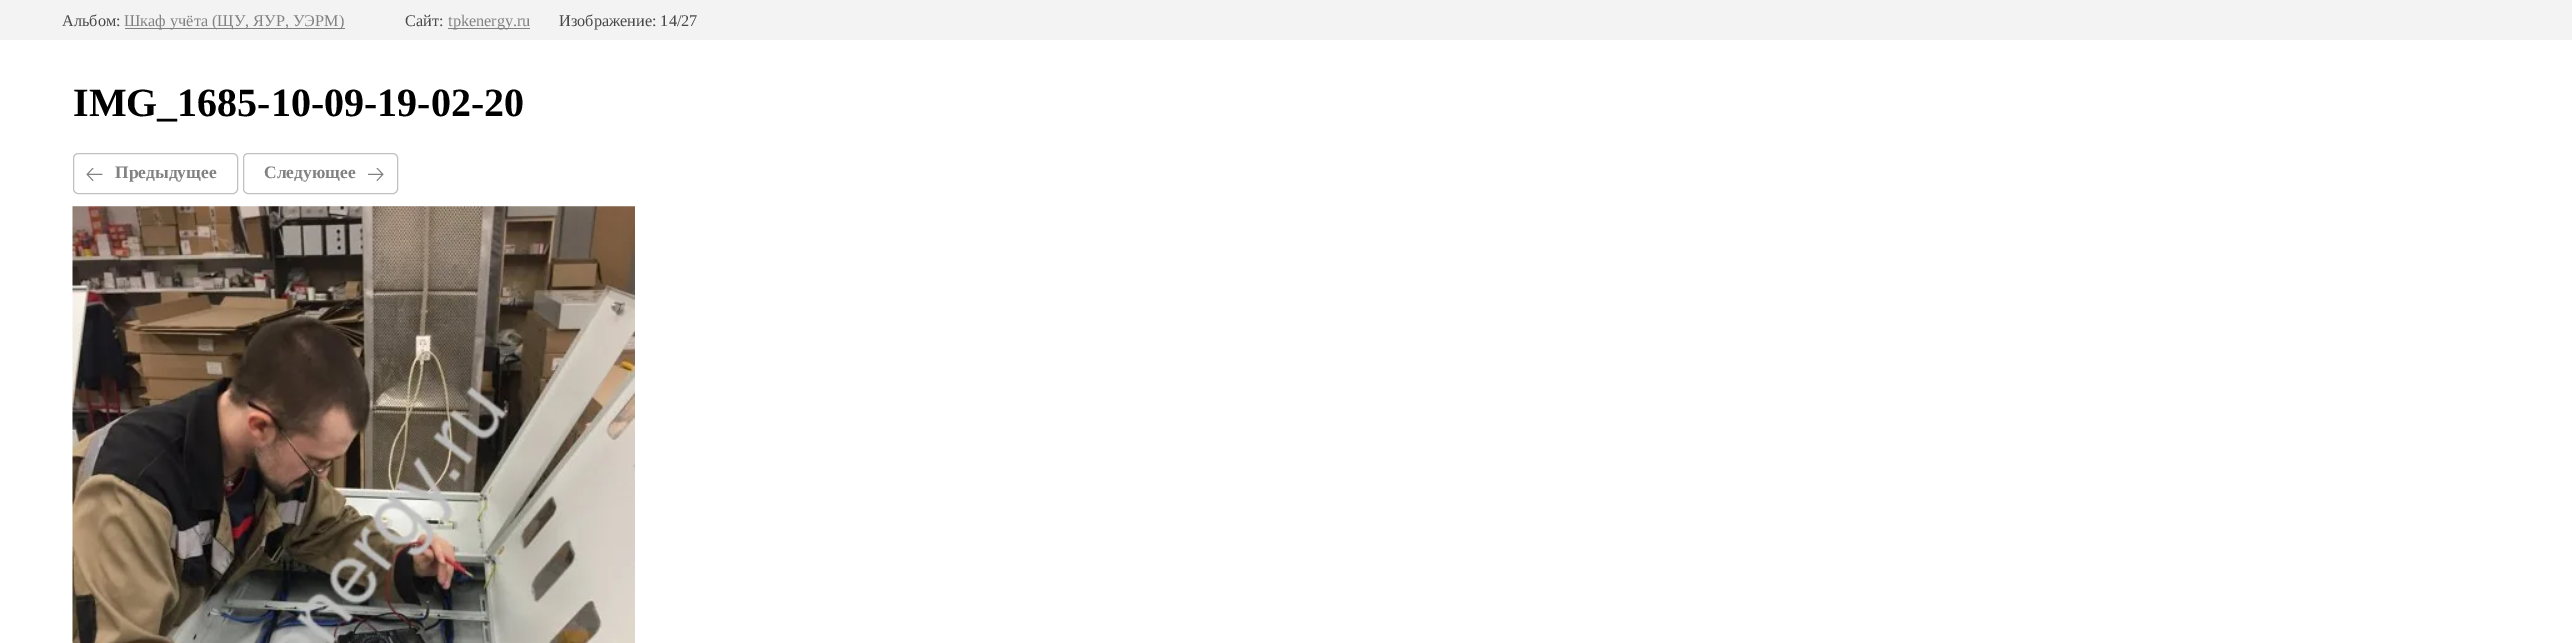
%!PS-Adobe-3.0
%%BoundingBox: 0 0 2572 643
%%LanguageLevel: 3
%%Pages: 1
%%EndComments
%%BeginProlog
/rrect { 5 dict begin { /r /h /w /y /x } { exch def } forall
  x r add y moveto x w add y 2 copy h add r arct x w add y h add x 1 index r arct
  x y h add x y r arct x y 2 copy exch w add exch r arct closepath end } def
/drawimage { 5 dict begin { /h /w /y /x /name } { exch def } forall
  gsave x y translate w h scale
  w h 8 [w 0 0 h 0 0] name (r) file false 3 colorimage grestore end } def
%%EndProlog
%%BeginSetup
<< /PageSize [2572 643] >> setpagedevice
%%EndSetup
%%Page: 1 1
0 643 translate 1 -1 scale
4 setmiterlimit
1 setgray
0 0 2572 643 rectfill
0.953 setgray
0 0 2572 40 rectfill
0.51 setgray
125 28 220 1 rectfill
448 28 82 1 rectfill
0.757 setgray
73.5 153.5 164 40 4.5 rrect stroke
(images/1.raw) 86 168 17 13 drawimage
243.5 153.5 154 40 4.5 rrect stroke
(images/2.raw) 368 168 16 13 drawimage
(images/3.raw) 72 206 563 437 drawimage
/LiberationSerif-Regular [16.25 0 0 -16.25 0 0] selectfont
0.282 setgray
62 26 moveto (Альбом:) show
0.51 setgray
124 26 moveto (Шкаф учёта \(ЩУ, ЯУР, УЭРМ\)) show
0.282 setgray
405 26 moveto (Сайт:) show
0.51 setgray
448 26 moveto (tpkenergy.ru) show
0.282 setgray
559 26 moveto (Изображение: 14/27) show
/LiberationSerif-Bold [40 0 0 -40 0 0] selectfont
0 setgray
73 116 moveto (IMG_1685-10-09-19-02-20) show
/LiberationSerif-Bold [17.5 0 0 -17.5 0 0] selectfont
0.51 setgray
115 178 moveto (Предыдущее) show
264 178 moveto (Следующее) show
showpage
%%EOF
